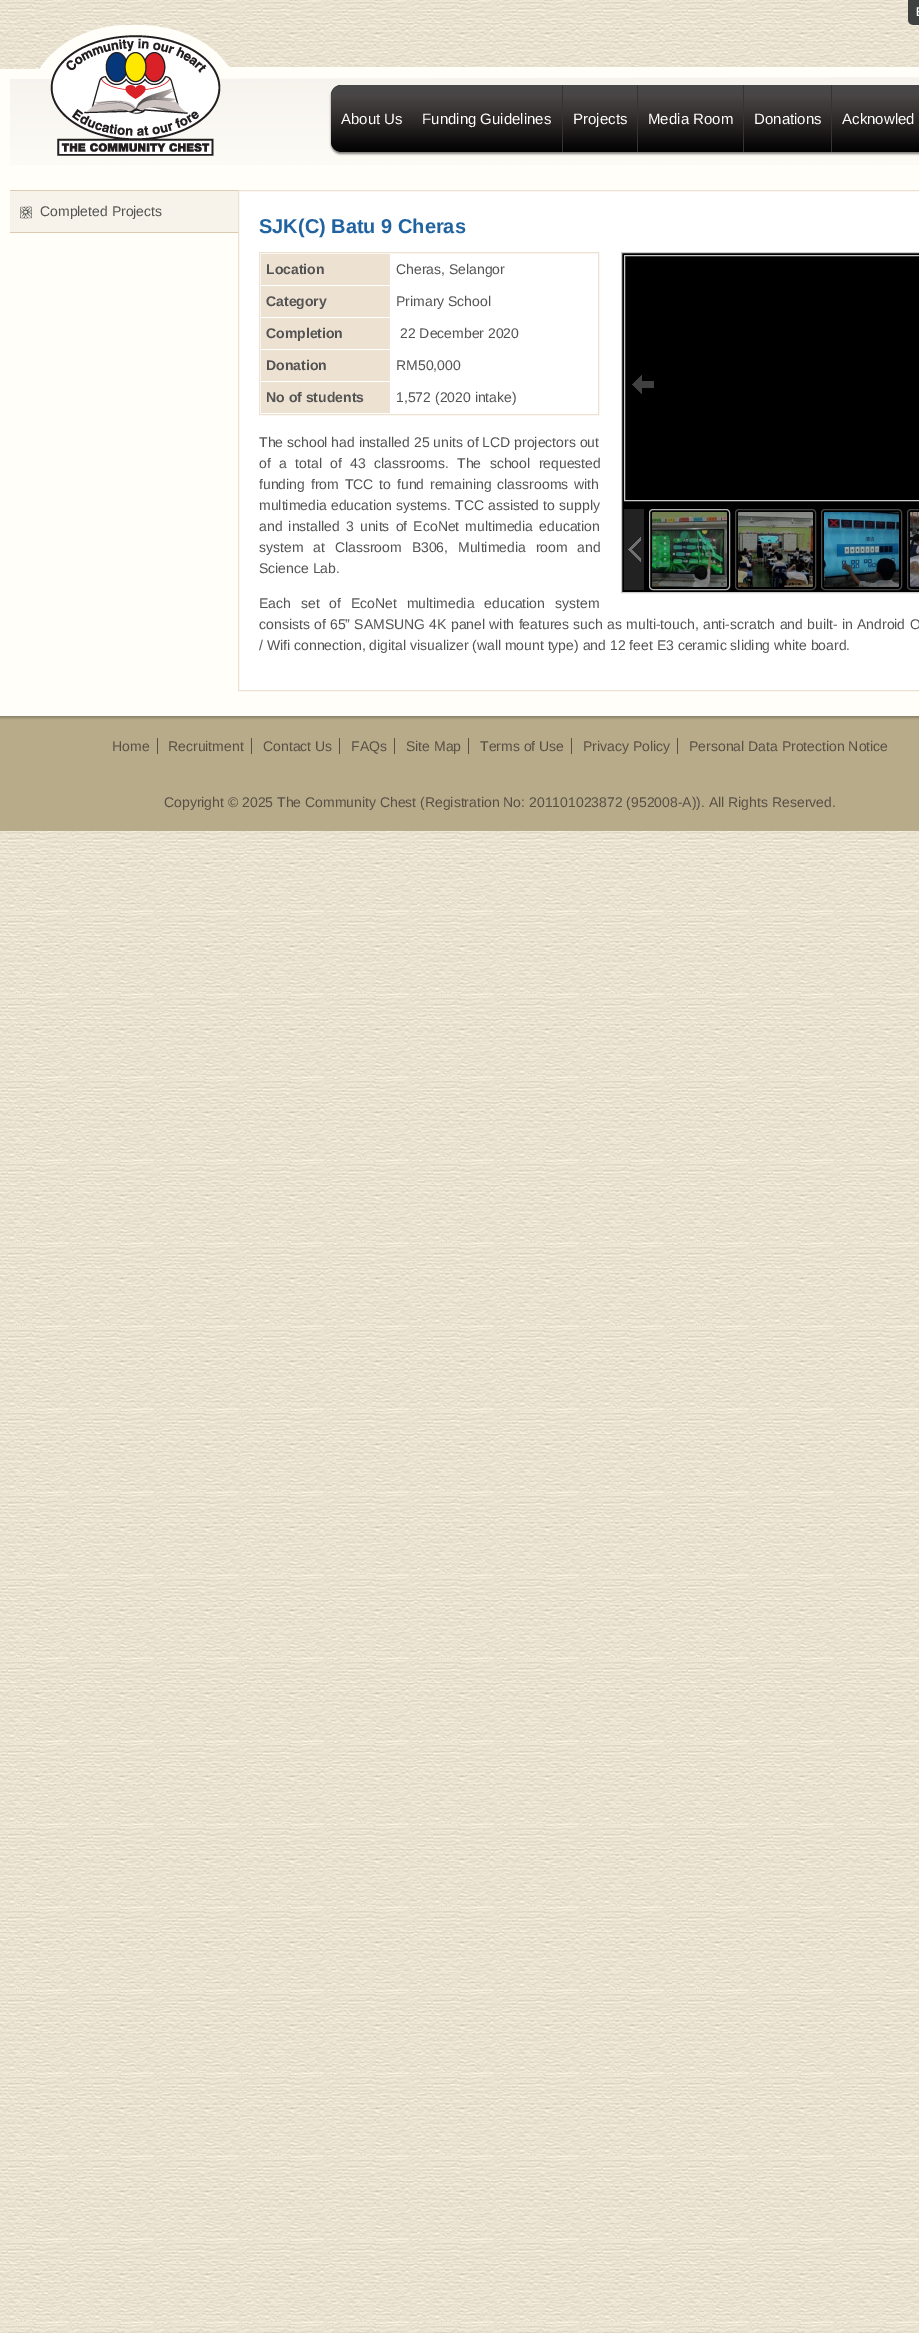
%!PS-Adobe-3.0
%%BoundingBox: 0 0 919 2333
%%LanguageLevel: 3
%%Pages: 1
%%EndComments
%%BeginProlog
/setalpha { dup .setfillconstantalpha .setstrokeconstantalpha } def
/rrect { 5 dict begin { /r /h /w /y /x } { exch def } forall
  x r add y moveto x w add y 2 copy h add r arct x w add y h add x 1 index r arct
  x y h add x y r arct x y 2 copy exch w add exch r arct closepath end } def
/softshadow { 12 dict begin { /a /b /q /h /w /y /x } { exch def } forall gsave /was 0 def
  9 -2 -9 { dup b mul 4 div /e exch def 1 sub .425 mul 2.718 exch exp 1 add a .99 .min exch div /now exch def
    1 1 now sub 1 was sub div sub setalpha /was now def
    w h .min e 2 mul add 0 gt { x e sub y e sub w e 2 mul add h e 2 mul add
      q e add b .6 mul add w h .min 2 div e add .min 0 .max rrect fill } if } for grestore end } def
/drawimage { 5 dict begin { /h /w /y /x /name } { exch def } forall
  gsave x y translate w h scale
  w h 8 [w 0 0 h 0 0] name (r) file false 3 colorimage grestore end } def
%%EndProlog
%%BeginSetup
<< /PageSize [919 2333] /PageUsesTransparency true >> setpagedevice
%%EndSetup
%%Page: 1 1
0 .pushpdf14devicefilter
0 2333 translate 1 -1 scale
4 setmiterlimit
1 setgray
0 0 919 2333 rectfill
(images/1.raw) 0 0 919 2333 drawimage
(images/2.raw) 908 0 11 25 drawimage
(images/3.raw) 0 25 919 140 drawimage
(images/4.raw) 50 35 171 121 drawimage
0 setgray
331 87 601 67 10 1 0.5 softshadow
0.004 setgray
331 85 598 67 10 rrect fill
(images/5.raw) 331 85 588 67 drawimage
0.216 0.2 0.2 setrgbcolor
562 85 1 67 rectfill
637 85 1 67 rectfill
743 85 1 67 rectfill
831 85 1 67 rectfill
1 0.996 0.976 setrgbcolor
0 165 919 551 rectfill
0.863 0.796 0.694 setrgbcolor
10 190 228 1 rectfill
0.969 0.953 0.918 setrgbcolor
10 191 228 41 rectfill
(images/6.raw) 20 206 12 13 drawimage
0.863 0.796 0.694 setrgbcolor
10 232 228 1 rectfill
1 setgray
newpath 238.5 190.5 moveto 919.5 190.5 lineto 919.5 690.5 lineto 238.5 690.5 lineto closepath gsave fill grestore
0.929 0.882 0.824 setrgbcolor
stroke
259.5 252.5 339 162 rectstroke
261 254 129 31 rectfill
261 286 129 31 rectfill
261 318 129 31 rectfill
261 350 129 31 rectfill
261 382 129 31 rectfill
0 setgray
newpath 621.5 252.5 moveto 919.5 252.5 lineto 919.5 592.5 lineto 621.5 592.5 lineto closepath gsave fill grestore
0.8 setgray
stroke
624.5 255.5 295 245 rectstroke
(images/7.raw) 632 375 22 19 drawimage
0.133 setgray
624 509 20 81 rectfill
(images/8.raw) 628 537 13 25 drawimage
0.702 setgray
649.5 509.5 80 80 3.5 rrect stroke
(images/9.raw) 652 512 75 75 drawimage
0.278 setgray
735.5 509.5 80 80 3.5 rrect stroke
(images/10.raw) 738 512 75 75 drawimage
821.5 509.5 80 80 3.5 rrect stroke
(images/11.raw) 824 512 75 75 drawimage
907.5 509.5 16 80 3.5 rrect stroke
(images/12.raw) 910 512 9 75 drawimage
0.718 0.671 0.537 setrgbcolor
0 720 919 111 rectfill
(images/13.raw) 0 716 919 4 drawimage
0.349 0.31 0.271 setrgbcolor
157 738 1 16 rectfill
251 738 1 16 rectfill
339 738 1 16 rectfill
394 738 1 16 rectfill
468 738 1 16 rectfill
571 738 1 16 rectfill
677 738 1 16 rectfill
/LiberationSans-Regular [15 0 0 -15 0 0] selectfont
1 setgray
341 124 moveto (About Us) show
422 124 moveto (Funding Guidelines) show
573 124 moveto (Projects) show
648 124 moveto (Media Room) show
754 124 moveto (Donations) show
842 124 moveto (Acknowled) show
/LiberationSans-Regular [14 0 0 -14 0 0] selectfont
0.325 setgray
40 216 moveto (Completed Projects) show
/LiberationSans-Bold [20 0 0 -20 0 0] selectfont
0.129 0.384 0.627 setrgbcolor
259 233 moveto (SJK\(C\) Batu 9 Cheras) show
/LiberationSans-Bold [14 0 0 -14 0 0] selectfont
0.325 setgray
266 274 moveto (Location) show
/LiberationSans-Regular [14 0 0 -14 0 0] selectfont
396 274 moveto (Cheras, Selangor) show
/LiberationSans-Bold [14 0 0 -14 0 0] selectfont
266 306 moveto (Category) show
/LiberationSans-Regular [14 0 0 -14 0 0] selectfont
396 306 moveto (Primary School) show
/LiberationSans-Bold [14 0 0 -14 0 0] selectfont
266 338 moveto (Completion) show
/LiberationSans-Regular [14 0 0 -14 0 0] selectfont
400 338 moveto (22 December 2020) show
/LiberationSans-Bold [14 0 0 -14 0 0] selectfont
266 370 moveto (Donation) show
/LiberationSans-Regular [14 0 0 -14 0 0] selectfont
396 370 moveto (RM50,000) show
/LiberationSans-Bold [14 0 0 -14 0 0] selectfont
266 402 moveto (No of students) show
/LiberationSans-Regular [14 0 0 -14 0 0] selectfont
396 402 moveto (1,572 \(2020 intake\)) show
259 447 moveto (The school had installed 25 units of LCD projectors out) show
259 468 moveto 4.5 0 32 (of a total of 43 classrooms. The school requested) widthshow
259 489 moveto 2 0 32 (funding from TCC to fund remaining classrooms with) widthshow
259 510 moveto 0.25 0 32 (multimedia education systems. TCC assisted to supply) widthshow
259 531 moveto 2.25 0 32 (and installed 3 units of EcoNet multimedia education) widthshow
259 552 moveto 6 0 32 (system at Classroom B306, Multimedia room and) widthshow
259 573 moveto (Science Lab.) show
259 608 moveto 6 0 32 (Each set of EcoNet multimedia education system) widthshow
259 629 moveto 0.4 0 32 (consists of 65” SAMSUNG 4K panel with features such as multi-touch, anti-scratch and built- in Android O) widthshow
259 650 moveto (/ Wifi connection, digital visualizer \(wall mount type\) and 12 feet E3 ceramic sliding white board.) show
0.349 0.31 0.271 setrgbcolor
112 751 moveto (Home) show
168 751 moveto (Recruitment) show
263 751 moveto (Contact Us) show
351 751 moveto (FAQs) show
406 751 moveto (Site Map) show
480 751 moveto (Terms of Use) show
583 751 moveto (Privacy Policy) show
689 751 moveto (Personal Data Protection Notice) show
164 807 moveto (Copyright © 2025 The Community Chest \(Registration No: 201101023872 \(952008-A\)\). All Rights Reserved.) show
.poppdf14devicefilter showpage
%%EOF
